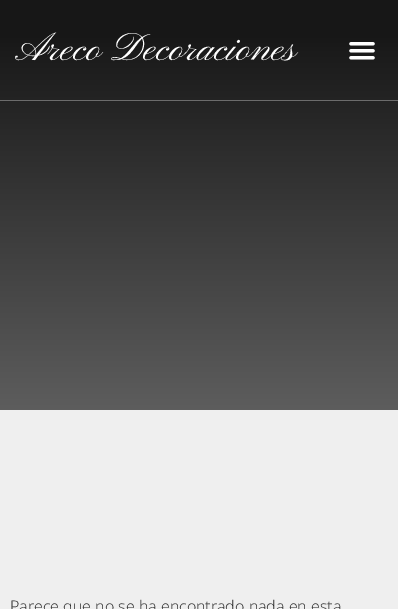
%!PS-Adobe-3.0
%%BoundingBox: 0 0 398 609
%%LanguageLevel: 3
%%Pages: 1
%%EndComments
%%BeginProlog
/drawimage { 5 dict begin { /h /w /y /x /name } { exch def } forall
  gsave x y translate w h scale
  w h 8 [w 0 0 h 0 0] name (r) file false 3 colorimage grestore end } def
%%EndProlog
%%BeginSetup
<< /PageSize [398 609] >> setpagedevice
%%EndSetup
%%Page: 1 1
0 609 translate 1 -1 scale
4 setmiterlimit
0.937 setgray
0 0 398 609 rectfill
gsave newpath 0 0 moveto 398 0 lineto 398 410 lineto 0 410 lineto closepath clip newpath
<< /ShadingType 2 /ColorSpace /DeviceRGB /Coords [199 -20 199 410] /Extend [true true] /Function << /FunctionType 3 /Domain [0 1] /Functions [<< /FunctionType 2 /Domain [0 1] /C0 [0.09 0.09 0.09] /C1 [0.09 0.09 0.09] /N 1 >> << /FunctionType 2 /Domain [0 1] /C0 [0.09 0.09 0.09] /C1 [0.365 0.365 0.365] /N 1 >>] /Bounds [0.12] /Encode [0 1 0 1] >> >> shfill grestore
0.424 setgray
0 100 398 1 rectfill
(images/1.raw) 349 42 26 18 drawimage
/PinyonScript-Regular [40 0 0 -40 0 0] selectfont
1 setgray
15 60 moveto (Areco Decoraciones) show
/OpenSans-Light [16 0 0 -16 0 0] selectfont
0.176 setgray
10 612 moveto (Parece que no se ha encontrado nada en esta) show
showpage
%%EOF
